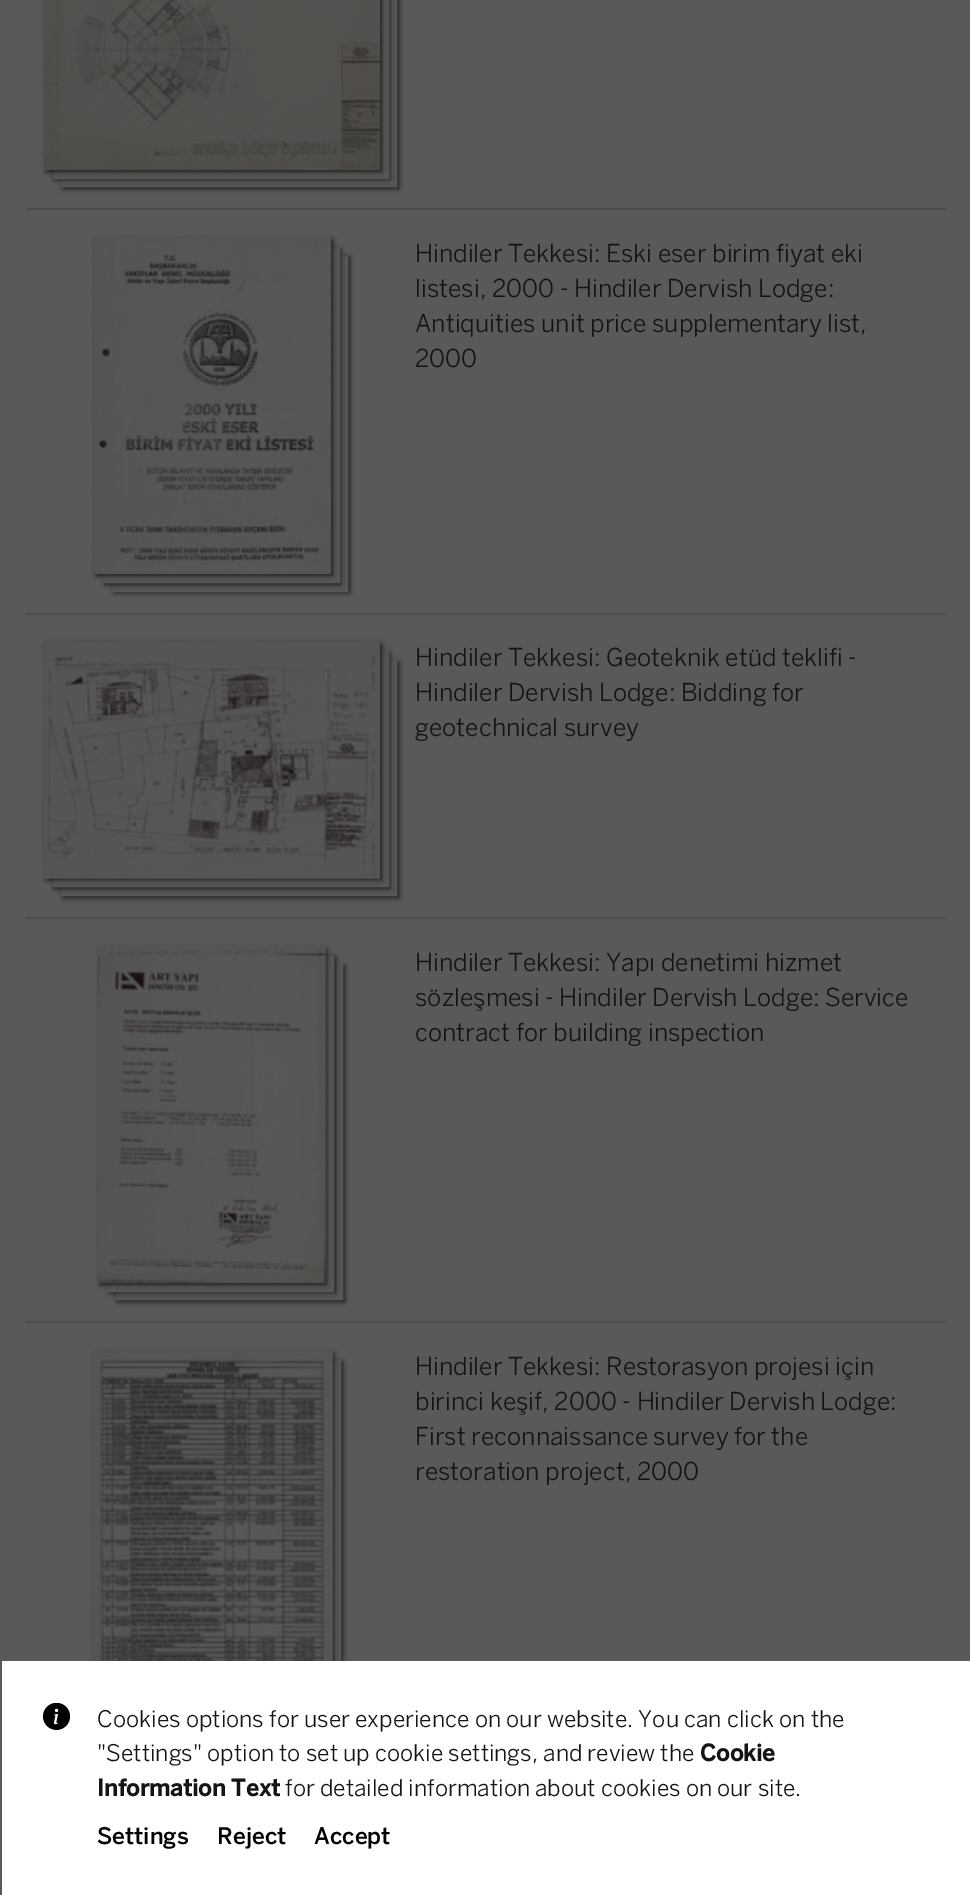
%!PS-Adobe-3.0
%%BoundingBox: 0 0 970 1895
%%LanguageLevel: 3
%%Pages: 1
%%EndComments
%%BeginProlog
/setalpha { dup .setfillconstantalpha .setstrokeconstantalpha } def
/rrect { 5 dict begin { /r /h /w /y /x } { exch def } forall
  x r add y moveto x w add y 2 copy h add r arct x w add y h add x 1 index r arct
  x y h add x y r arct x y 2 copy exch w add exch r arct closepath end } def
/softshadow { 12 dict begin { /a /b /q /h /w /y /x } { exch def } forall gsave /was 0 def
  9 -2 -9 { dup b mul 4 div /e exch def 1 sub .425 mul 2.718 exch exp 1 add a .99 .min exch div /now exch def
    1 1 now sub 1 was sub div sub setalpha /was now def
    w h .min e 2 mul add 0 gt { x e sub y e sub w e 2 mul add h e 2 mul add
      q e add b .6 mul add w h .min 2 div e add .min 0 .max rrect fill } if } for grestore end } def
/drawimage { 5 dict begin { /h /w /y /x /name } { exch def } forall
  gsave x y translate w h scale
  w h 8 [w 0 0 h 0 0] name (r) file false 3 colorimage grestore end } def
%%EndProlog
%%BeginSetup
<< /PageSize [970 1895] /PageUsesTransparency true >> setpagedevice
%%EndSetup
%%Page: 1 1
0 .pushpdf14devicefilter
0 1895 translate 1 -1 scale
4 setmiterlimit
0.349 setgray
0 0 970 1895 rectfill
0.118 setgray
63 -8 336 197 0 2.5 1 softshadow
0.349 setgray
newpath 63 -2 moveto 395 -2 lineto 395 185 lineto 63 185 lineto closepath gsave fill grestore
0.337 setgray
4 setlinewidth
stroke
0.118 setgray
54 -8 336 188 0 2.5 1 softshadow
0.349 setgray
newpath 55 -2 moveto 387 -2 lineto 387 177 lineto 55 177 lineto closepath gsave fill grestore
0.337 setgray
stroke
0.118 setgray
46 -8 336 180 0 2.5 1 softshadow
(images/1.raw) 43 0 337 170 drawimage
114 257 236 336 0 2.5 1 softshadow
0.349 setgray
newpath 114 258 moveto 346 258 lineto 346 590 lineto 114 590 lineto closepath gsave fill grestore
0.337 setgray
stroke
0.118 setgray
105 249 236 336 0 2.5 1 softshadow
0.349 setgray
newpath 105 249 moveto 338 249 lineto 338 581 lineto 105 581 lineto closepath gsave fill grestore
0.337 setgray
stroke
0.118 setgray
96 240 237 336 0 2.5 1 softshadow
(images/2.raw) 94 237 237 337 drawimage
0.302 setgray
26 208 921 2 rectfill
0.118 setgray
63 662 336 236 0 2.5 1 softshadow
0.349 setgray
newpath 63 662 moveto 395 662 lineto 395 894 lineto 63 894 lineto closepath gsave fill grestore
0.337 setgray
stroke
0.118 setgray
54 653 336 236 0 2.5 1 softshadow
0.349 setgray
newpath 55 653 moveto 387 653 lineto 387 885 lineto 55 885 lineto closepath gsave fill grestore
0.337 setgray
stroke
0.118 setgray
46 644 336 236 0 2.5 1 softshadow
(images/3.raw) 44 642 336 237 drawimage
0.302 setgray
26 613 921 2 rectfill
0.118 setgray
117 966 228 336 0 2.5 1 softshadow
0.349 setgray
newpath 118 966 moveto 341 966 lineto 341 1298 lineto 118 1298 lineto closepath gsave fill grestore
0.337 setgray
stroke
0.118 setgray
109 957 227 336 0 2.5 1 softshadow
0.349 setgray
newpath 109 958 moveto 332 958 lineto 332 1290 lineto 109 1290 lineto closepath gsave fill grestore
0.337 setgray
stroke
0.118 setgray
100 949 227 336 0 2.5 1 softshadow
(images/4.raw) 98 946 228 337 drawimage
0.302 setgray
26 917 921 2 rectfill
0.118 setgray
103 1362 240 336 0 2.5 1 softshadow
0.349 setgray
332 1364 5 297 rectfill
0.337 setgray
104 1362 235 332 rectstroke
0.118 setgray
95 1353 239 336 0 2.5 1 softshadow
(images/5.raw) 92 1350 241 311 drawimage
0.302 setgray
26 1321 921 2 rectfill
1 setgray
2 1661 968 234 rectfill
(images/6.raw) 42 1703 28 27 drawimage
/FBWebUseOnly-Light [24.5 0 0 -24.5 0 0] selectfont
0.078 setgray
415 262 moveto (Hindiler Tekkesi: Eski eser birim fiyat eki) show
415 297 moveto (listesi, 2000 - Hindiler Dervish Lodge:) show
415 332 moveto (Antiquities unit price supplementary list,) show
415 367 moveto (2000) show
415 666 moveto (Hindiler Tekkesi: Geoteknik etüd teklifi -) show
415 701 moveto (Hindiler Dervish Lodge: Bidding for) show
415 736 moveto (geotechnical survey) show
415 971 moveto (Hindiler Tekkesi: Yapı denetimi hizmet) show
415 1006 moveto (sözleşmesi - Hindiler Dervish Lodge: Service) show
415 1041 moveto (contract for building inspection) show
415 1375 moveto (Hindiler Tekkesi: Restorasyon projesi için) show
415 1410 moveto (birinci keşif, 2000 - Hindiler Dervish Lodge:) show
415 1445 moveto (First reconnaissance survey for the) show
415 1480 moveto (restoration project, 2000) show
/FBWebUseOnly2-Light [22.75 0 0 -22.75 0 0] selectfont
97 1727 moveto (Cookies options for user experience on our website. You can click on the) show
97 1761 moveto ("Settings" option to set up cookie settings, and review the) show
/FBWebUseOnly-Bold [22.75 0 0 -22.75 0 0] selectfont
700 1761 moveto (Cookie) show
97 1796 moveto (Information Text) show
/FBWebUseOnly2-Light [22.75 0 0 -22.75 0 0] selectfont
285 1796 moveto (for detailed information about cookies on our site.) show
/FBWebUseOnly-Medium [22.75 0 0 -22.75 0 0] selectfont
0 setgray
97 1844 moveto (Settings) show
217 1844 moveto (Reject) show
314 1844 moveto (Accept) show
.poppdf14devicefilter showpage
%%EOF
